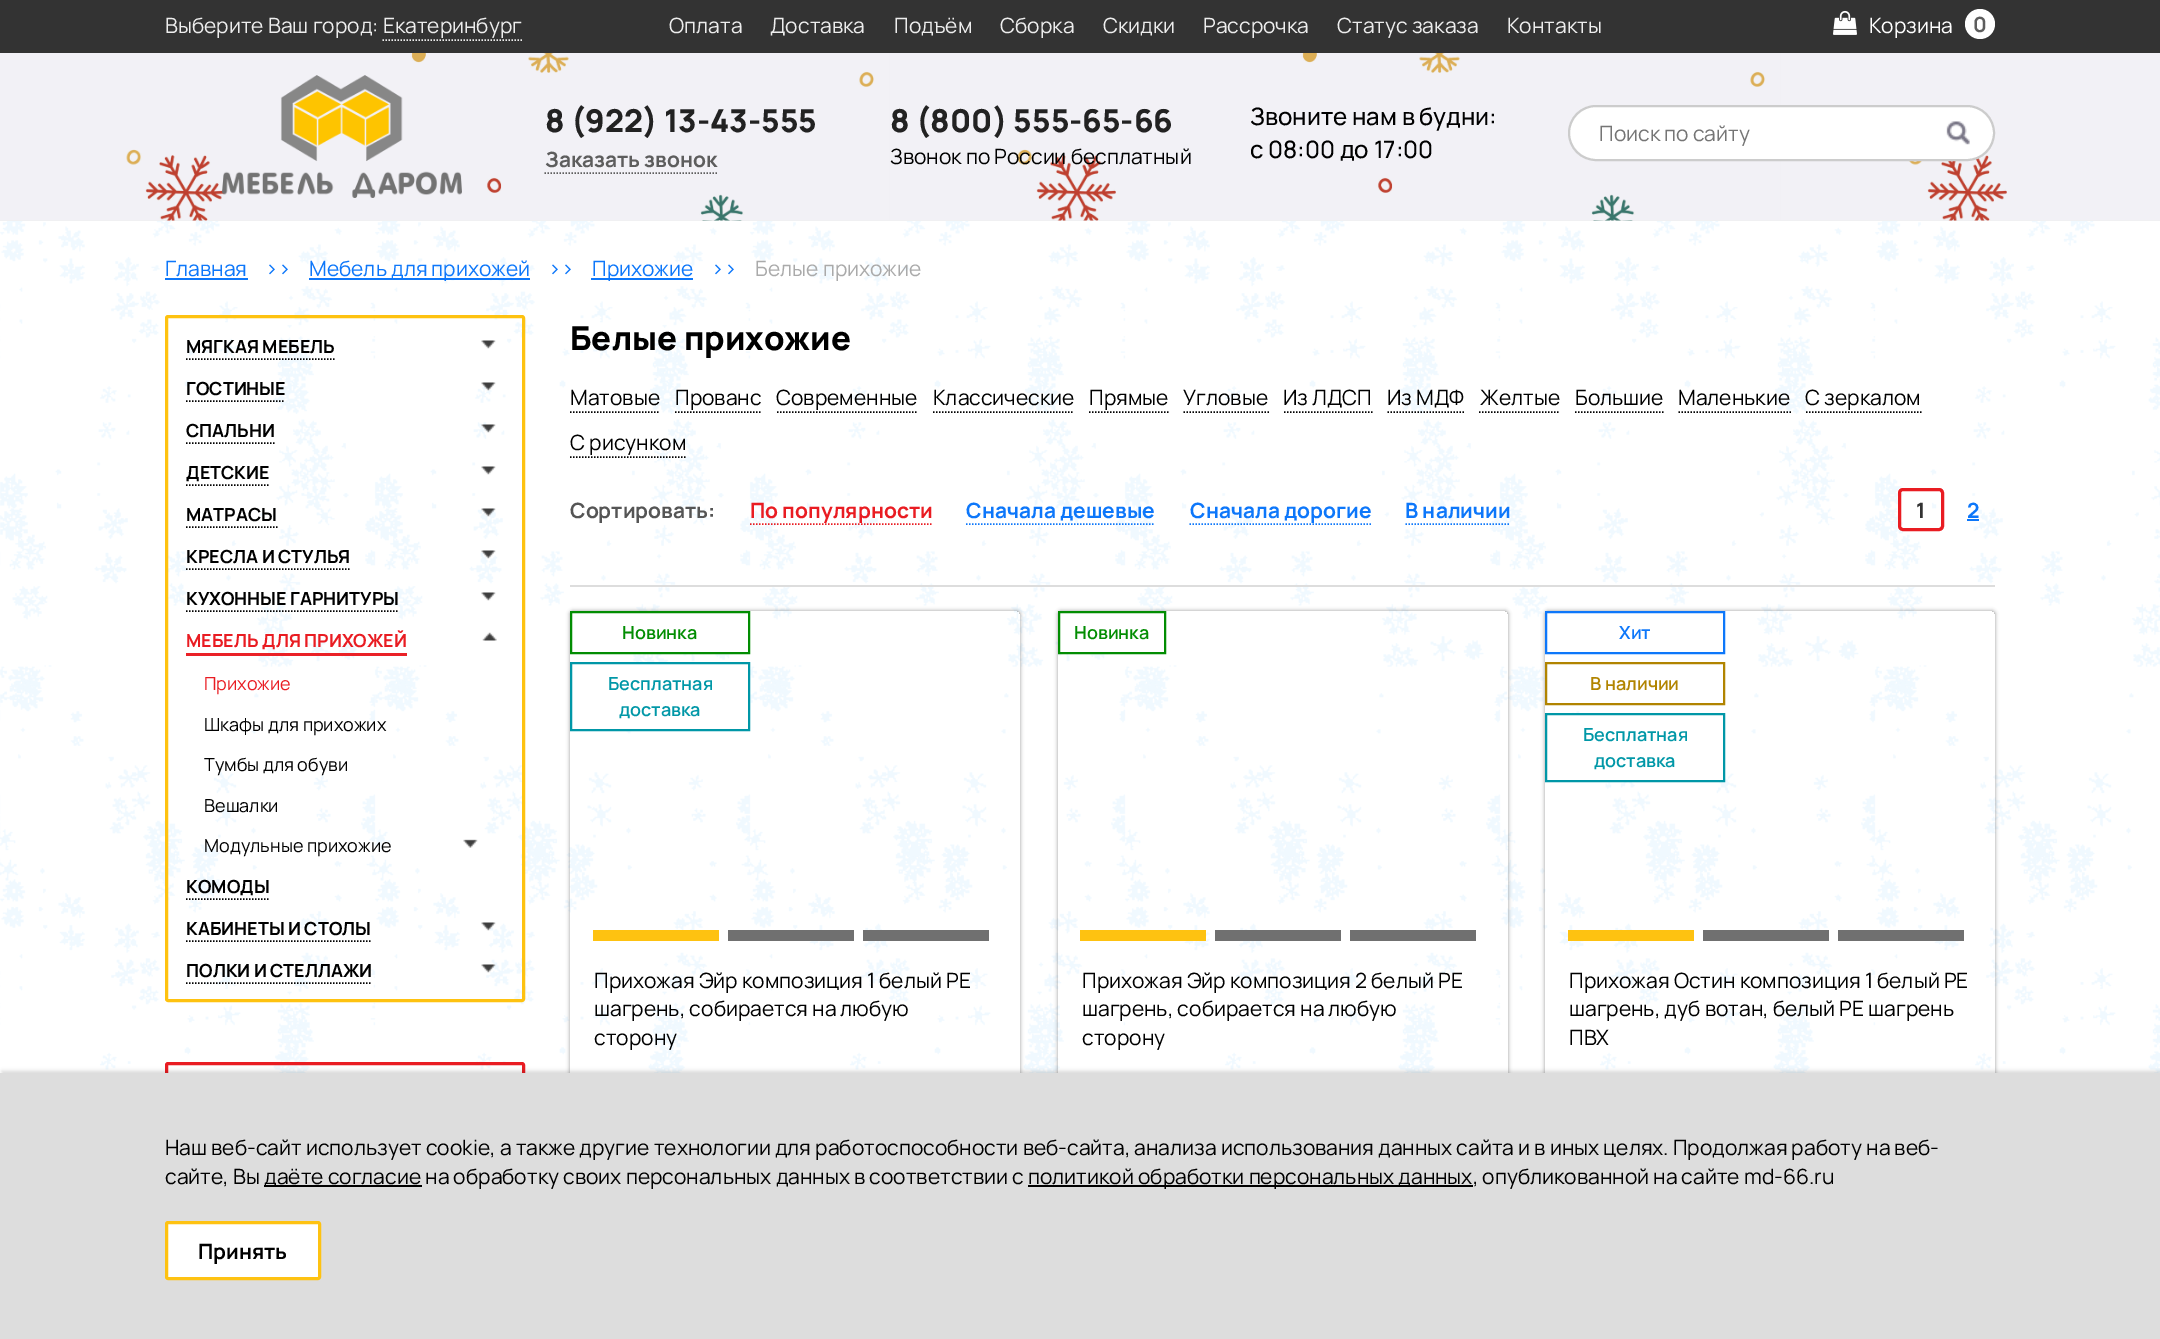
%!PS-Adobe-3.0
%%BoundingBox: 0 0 2160 1339
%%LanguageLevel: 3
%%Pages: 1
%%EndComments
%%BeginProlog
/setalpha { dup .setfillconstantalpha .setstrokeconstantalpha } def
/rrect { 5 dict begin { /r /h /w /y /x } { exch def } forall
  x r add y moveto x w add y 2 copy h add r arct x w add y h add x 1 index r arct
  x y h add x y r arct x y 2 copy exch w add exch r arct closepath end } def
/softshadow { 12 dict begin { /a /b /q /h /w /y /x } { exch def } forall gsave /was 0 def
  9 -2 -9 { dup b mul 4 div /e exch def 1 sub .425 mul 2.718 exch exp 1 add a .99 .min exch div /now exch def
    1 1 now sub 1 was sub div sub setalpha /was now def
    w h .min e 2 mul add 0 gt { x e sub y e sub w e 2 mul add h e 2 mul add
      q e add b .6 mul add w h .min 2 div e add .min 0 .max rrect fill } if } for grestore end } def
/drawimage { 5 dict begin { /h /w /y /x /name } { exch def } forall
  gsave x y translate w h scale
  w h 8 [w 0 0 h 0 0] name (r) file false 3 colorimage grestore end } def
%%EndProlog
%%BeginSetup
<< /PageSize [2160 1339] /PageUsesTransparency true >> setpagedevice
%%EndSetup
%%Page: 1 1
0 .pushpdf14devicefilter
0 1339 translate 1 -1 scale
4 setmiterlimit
1 setgray
0 0 2160 1339 rectfill
(images/1.raw) 0 221 2160 852 drawimage
(images/2.raw) 0 221 2160 849 drawimage
0.2 setgray
0 0 2160 53 rectfill
0.929 setgray
1.5 setlinewidth
[1.5 1.5] 0 setdash
newpath 382.5 40 moveto 522 40 lineto stroke
(images/3.raw) 1833 10 24 25 drawimage
1 setgray
newpath 1980 24 15 0 360 arc closepath fill
0.937 setgray
0 220 2160 1 rectfill
(images/4.raw) 0 53 2160 168 drawimage
(images/5.raw) 222 75 240 123 drawimage
0.365 setgray
newpath 544.5 173 moveto 717 173 lineto stroke
1 setgray
1569 106 425 54 27 rrect gsave fill grestore
0.8 setgray
2 setlinewidth
[] 0 setdash
stroke
(images/6.raw) 1946 121 24 24 drawimage
0.051 0.467 0.98 setrgbcolor
165 278 83 2 rectfill
309 278 221 2 rectfill
591 278 102 2 rectfill
0.996 0.761 0.063 setrgbcolor
3 setlinewidth
166.5 316.5 357 684 1.5 rrect stroke
0 setgray
1.5 setlinewidth
[1.5 1.5] 0 setdash
newpath 186 359 moveto 334.5 359 lineto stroke
(images/7.raw) 481 340 15 9 drawimage
newpath 186 401 moveto 285 401 lineto stroke
(images/8.raw) 481 382 15 9 drawimage
newpath 186 443 moveto 274.5 443 lineto stroke
(images/9.raw) 481 424 15 9 drawimage
newpath 186 485 moveto 270 485 lineto stroke
(images/7.raw) 481 466 15 9 drawimage
newpath 186 527 moveto 277.5 527 lineto stroke
(images/10.raw) 481 508 15 9 drawimage
newpath 186 569 moveto 351 569 lineto stroke
(images/11.raw) 481 550 15 9 drawimage
newpath 186 611 moveto 399 611 lineto stroke
(images/7.raw) 481 592 15 9 drawimage
0.918 0.129 0.153 setrgbcolor
186 653 221 3 rectfill
(images/12.raw) 482 632 15 9 drawimage
(images/13.raw) 463 839 15 9 drawimage
0 setgray
newpath 186 899 moveto 268.5 899 lineto stroke
newpath 186 941 moveto 370.5 941 lineto stroke
(images/14.raw) 481 922 15 9 drawimage
newpath 186 983 moveto 372 983 lineto stroke
(images/15.raw) 481 964 15 9 drawimage
0.914 0.11 0.133 setrgbcolor
3 setlinewidth
[] 0 setdash
166.5 1063.5 357 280 1.5 rrect stroke
0 setgray
1.5 setlinewidth
[1.5 1.5] 0 setdash
newpath 570 412 moveto 660 412 lineto stroke
newpath 675 412 moveto 762 412 lineto stroke
newpath 777 412 moveto 918 412 lineto stroke
newpath 933 412 moveto 1074 412 lineto stroke
newpath 1089 412 moveto 1168.5 412 lineto stroke
newpath 1183.5 412 moveto 1269 412 lineto stroke
newpath 1284 412 moveto 1372.5 412 lineto stroke
newpath 1387.5 412 moveto 1464 412 lineto stroke
newpath 1479 412 moveto 1560 412 lineto stroke
newpath 1575 412 moveto 1663.5 412 lineto stroke
newpath 1678.5 412 moveto 1791 412 lineto stroke
newpath 1806 412 moveto 1921.5 412 lineto stroke
newpath 570 457 moveto 685.5 457 lineto stroke
0.914 0.11 0.133 setrgbcolor
newpath 750 524 moveto 931.5 524 lineto stroke
0.051 0.467 0.98 setrgbcolor
newpath 966 524 moveto 1155 524 lineto stroke
newpath 1189.5 524 moveto 1371 524 lineto stroke
newpath 1405.5 524 moveto 1510.5 524 lineto stroke
0.914 0.11 0.133 setrgbcolor
3 setlinewidth
[] 0 setdash
1899.5 489.5 43 40 3.5 rrect stroke
0.051 0.467 0.98 setrgbcolor
1967 519 12 2 rectfill
0.867 setgray
570 585 1425 2 rectfill
gsave
newpath 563 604 moveto 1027 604 lineto 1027 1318 lineto 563 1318 lineto closepath 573 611 moveto 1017 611 lineto 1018.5 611 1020 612.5 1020 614 curveto 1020 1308 lineto 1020 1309.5 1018.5 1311 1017 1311 curveto 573 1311 lineto 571.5 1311 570 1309.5 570 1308 curveto 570 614 lineto 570 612.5 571.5 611 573 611 curveto closepath eoclip newpath
0 setgray
570 611 450 700 3 2 0.4 softshadow
grestore
1 setgray
632 613 100 39 rectfill
0.008 0.553 0.008 setrgbcolor
2 setlinewidth
571 612 178 41 rectstroke
1 setgray
629 664 119 59 rectfill
0 0.592 0.655 setrgbcolor
571 663 178 67 rectstroke
0.996 0.761 0.067 setrgbcolor
593 930 126 11 rectfill
0.439 setgray
728 930 126 11 rectfill
863 930 126 11 rectfill
gsave
newpath 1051 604 moveto 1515 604 lineto 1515 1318 lineto 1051 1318 lineto closepath 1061 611 moveto 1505 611 lineto 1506.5 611 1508 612.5 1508 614 curveto 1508 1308 lineto 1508 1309.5 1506.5 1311 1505 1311 curveto 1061 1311 lineto 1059.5 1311 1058 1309.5 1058 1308 curveto 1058 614 lineto 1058 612.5 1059.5 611 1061 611 curveto closepath eoclip newpath
0 setgray
1058 611 450 700 3 2 0.4 softshadow
grestore
1 setgray
newpath 1059 612 moveto 1165 612 lineto 1165 653 lineto 1059 653 lineto closepath gsave fill grestore
0.008 0.553 0.008 setrgbcolor
stroke
0.996 0.761 0.067 setrgbcolor
1080 930 126 11 rectfill
0.439 setgray
1215 930 126 11 rectfill
1350 930 126 11 rectfill
gsave
newpath 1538 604 moveto 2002 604 lineto 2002 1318 lineto 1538 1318 lineto closepath 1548 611 moveto 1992 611 lineto 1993.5 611 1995 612.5 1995 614 curveto 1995 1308 lineto 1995 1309.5 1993.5 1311 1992 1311 curveto 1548 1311 lineto 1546.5 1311 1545 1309.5 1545 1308 curveto 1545 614 lineto 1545 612.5 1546.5 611 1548 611 curveto closepath eoclip newpath
0 setgray
1545 611 450 700 3 2 0.4 softshadow
grestore
0.051 0.467 0.98 setrgbcolor
1546 612 178 41 rectstroke
1 setgray
1548 665 4 2 rectfill
0.694 0.518 0 setrgbcolor
1546 663 178 41 rectstroke
1 setgray
1570 715 153 65 rectfill
0 0.592 0.655 setrgbcolor
1546 714 178 67 rectstroke
0.996 0.761 0.067 setrgbcolor
1568 930 126 11 rectfill
0.439 setgray
1703 930 126 11 rectfill
1838 930 126 11 rectfill
0 setgray
2 1071 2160 267 0 2 0.15 softshadow
0.867 setgray
0 1073 2160 266 rectfill
0 setgray
264 1185 158 2 rectfill
1028 1185 445 2 rectfill
1 setgray
166.5 1222.5 153 56 1.5 rrect gsave fill grestore
0.996 0.761 0.067 setrgbcolor
3 setlinewidth
stroke
/Manrope-Regular [21 0 0 -21 0 0] selectfont
0.929 setgray
165 33 moveto (Выберите Ваш город: Екатеринбург) show
669 33 moveto (Оплата) show
770 33 moveto (Доставка) show
894 33 moveto (Подъём) show
1000 33 moveto (Сборка) show
1103 33 moveto (Скидки) show
1203 33 moveto (Рассрочка) show
1337 33 moveto (Статус заказа) show
1507 33 moveto (Контакты) show
1 setgray
1869 33 moveto (Корзина) show
/Manrope-Bold [21 0 0 -21 0 0] selectfont
0.365 setgray
1973 32 moveto (0) show
/Manrope-ExtraBold [31.5 0 0 -31.5 0 0] selectfont
0.133 setgray
545 132 moveto (8 \(922\) 13-43-555) show
/Manrope-Bold [21 0 0 -21 0 0] selectfont
0.365 setgray
545 167 moveto (Заказать звонок) show
/Manrope-ExtraBold [31.5 0 0 -31.5 0 0] selectfont
0.133 setgray
890 132 moveto (8 \(800\) 555-65-66) show
/Manrope-Regular [21 0 0 -21 0 0] selectfont
0 setgray
890 164 moveto (Звонок по России бесплатный) show
/Manrope-Medium [24 0 0 -24 0 0] selectfont
1250 125 moveto (Звоните нам в будни:) show
1250 158 moveto (с 08:00 до 17:00) show
/Manrope-Regular [21 0 0 -21 0 0] selectfont
0.459 setgray
1599 141 moveto (Поиск по сайту) show
0.051 0.467 0.98 setrgbcolor
165 276 moveto (Главная) show
265 276 moveto (>>) show
309 276 moveto (Мебель для прихожей) show
548 276 moveto (>>) show
592 276 moveto (Прихожие) show
711 276 moveto (>>) show
0.667 setgray
755 276 moveto (Белые прихожие) show
/Manrope-Bold [18 0 0 -18 0 0] selectfont
0 setgray
186 353 moveto (МЯГКАЯ МЕБЕЛЬ) show
186 395 moveto (ГОСТИНЫЕ) show
186 437 moveto (СПАЛЬНИ) show
186 479 moveto (ДЕТСКИЕ) show
186 521 moveto (МАТРАСЫ) show
186 563 moveto (КРЕСЛА И СТУЛЬЯ) show
186 605 moveto (КУХОННЫЕ ГАРНИТУРЫ) show
0.914 0.11 0.133 setrgbcolor
186 647 moveto (МЕБЕЛЬ ДЛЯ ПРИХОЖЕЙ) show
/Manrope-Regular [18 0 0 -18 0 0] selectfont
204 690 moveto (Прихожие) show
0 setgray
204 731 moveto (Шкафы для прихожих) show
204 771 moveto (Тумбы для обуви) show
204 812 moveto (Вешалки) show
204 852 moveto (Модульные прихожие) show
/Manrope-Bold [18 0 0 -18 0 0] selectfont
186 893 moveto (КОМОДЫ) show
186 935 moveto (КАБИНЕТЫ И СТОЛЫ) show
186 977 moveto (ПОЛКИ И СТЕЛЛАЖИ) show
/Manrope-ExtraBold [33 0 0 -33 0 0] selectfont
570 350 moveto (Белые прихожие) show
/Manrope-Regular [21 0 0 -21 0 0] selectfont
570 405 moveto (Матовые) show
675 405 moveto (Прованс) show
776 405 moveto (Современные) show
933 405 moveto (Классические) show
1089 405 moveto (Прямые) show
1183 405 moveto (Угловые) show
1283 405 moveto (Из ЛДСП) show
1387 405 moveto (Из МДФ) show
1480 405 moveto (Желтые) show
1575 405 moveto (Большие) show
1678 405 moveto (Маленькие) show
1805 405 moveto (С зеркалом) show
570 450 moveto (С рисунком) show
/Manrope-Bold [21 0 0 -21 0 0] selectfont
0.333 setgray
570 518 moveto (Сортировать:) show
0.914 0.11 0.133 setrgbcolor
750 518 moveto (По популярности) show
0.051 0.467 0.98 setrgbcolor
966 518 moveto (Сначала дешевые) show
1190 518 moveto (Сначала дорогие) show
1405 518 moveto (В наличии) show
0.2 setgray
1916 518 moveto (1) show
0.051 0.467 0.98 setrgbcolor
1967 518 moveto (2) show
/Manrope-SemiBold [18 0 0 -18 0 0] selectfont
0.008 0.553 0.008 setrgbcolor
622 639 moveto (Новинка) show
0 0.592 0.655 setrgbcolor
608 690 moveto (Бесплатная) show
619 716 moveto (доставка) show
/Manrope-Regular [21 0 0 -21 0 0] selectfont
0 setgray
594 988 moveto (Прихожая Эйр композиция 1 белый PE) show
594 1016 moveto (шагрень, собирается на любую) show
594 1045 moveto (сторону) show
/Manrope-SemiBold [18 0 0 -18 0 0] selectfont
0.008 0.553 0.008 setrgbcolor
1074 639 moveto (Новинка) show
/Manrope-Regular [21 0 0 -21 0 0] selectfont
0 setgray
1082 988 moveto (Прихожая Эйр композиция 2 белый PE) show
1082 1016 moveto (шагрень, собирается на любую) show
1082 1045 moveto (сторону) show
/Manrope-SemiBold [18 0 0 -18 0 0] selectfont
0.051 0.467 0.98 setrgbcolor
1619 639 moveto (Хит) show
0.694 0.518 0 setrgbcolor
1590 690 moveto (В наличии) show
0 0.592 0.655 setrgbcolor
1583 741 moveto (Бесплатная) show
1594 767 moveto (доставка) show
/Manrope-Regular [21 0 0 -21 0 0] selectfont
0 setgray
1569 988 moveto (Прихожая Остин композиция 1 белый PE) show
1569 1016 moveto (шагрень, дуб вотан, белый PE шагрень) show
1569 1045 moveto (ПВХ) show
165 1155 moveto (Наш веб-сайт использует cookie, а также другие технологии для работоспособности веб-сайта, анализа использования данных сайта и в иных целях. Продолжая работу на веб-) show
165 1184 moveto (сайте, Вы) show
264 1184 moveto (даёте согласие на обработку своих персональных данных в соответствии с) show
1028 1184 moveto (политикой обработки персональных данных, опубликованной на сайте md-66.ru) show
/Manrope-Bold [21 0 0 -21 0 0] selectfont
198 1259 moveto (Принять) show
.poppdf14devicefilter showpage
%%EOF
